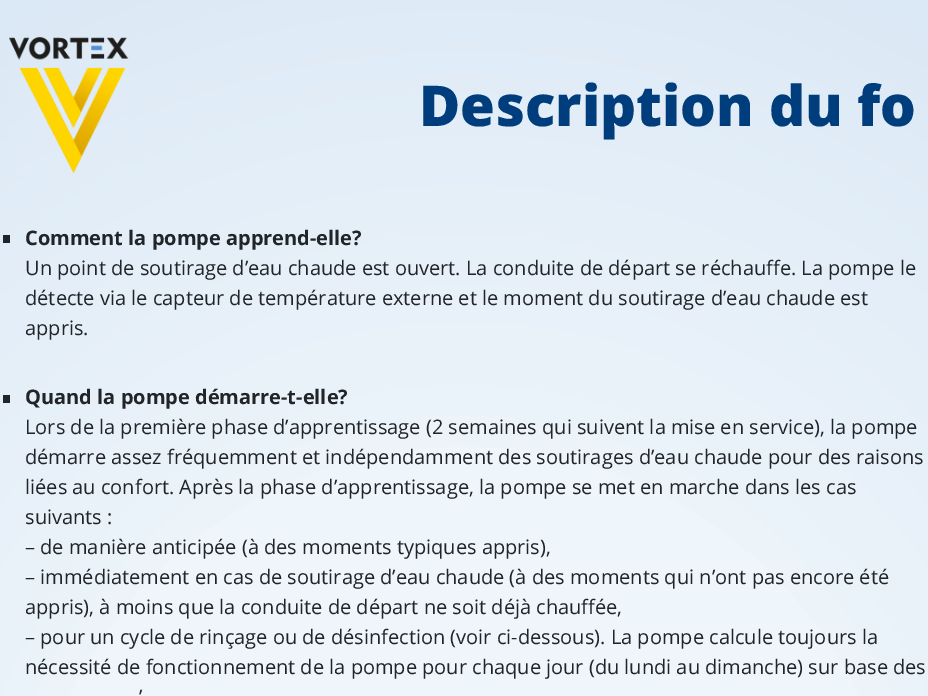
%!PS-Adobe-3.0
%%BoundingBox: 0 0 928 696
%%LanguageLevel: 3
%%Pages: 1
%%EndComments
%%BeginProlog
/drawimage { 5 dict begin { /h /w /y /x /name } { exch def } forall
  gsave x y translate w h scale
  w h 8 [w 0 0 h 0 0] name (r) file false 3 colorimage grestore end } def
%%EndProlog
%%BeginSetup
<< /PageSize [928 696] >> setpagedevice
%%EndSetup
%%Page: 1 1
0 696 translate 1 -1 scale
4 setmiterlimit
1 setgray
0 0 928 696 rectfill
gsave newpath 0 0 moveto 928 0 lineto 928 696 lineto 0 696 lineto closepath clip newpath 464 884 translate 999 999 scale
<< /ShadingType 3 /ColorSpace /DeviceRGB /Coords [0 0 0 0 0 1] /Extend [true true] /Function << /FunctionType 3 /Domain [0 1] /Functions [<< /FunctionType 2 /Domain [0 1] /C0 [0.933 0.961 0.984] /C1 [0.933 0.961 0.984] /N 1 >> << /FunctionType 2 /Domain [0 1] /C0 [0.933 0.961 0.984] /C1 [0.859 0.91 0.961] /N 1 >>] /Bounds [0.42] /Encode [0 1 0 1] >> >> shfill grestore
(images/1.raw) 9 37 120 136 drawimage
0.129 0.145 0.161 setrgbcolor
3 235 7 8 rectfill
3 395 7 8 rectfill
/OpenSans-ExtraBold [56.25 0 0 -56.25 0 0] selectfont
0 0.239 0.486 setrgbcolor
419 126 moveto (Description du fo) show
/OpenSans-Bold [20 0 0 -20 0 0] selectfont
0.129 0.145 0.161 setrgbcolor
25 245 moveto (Comment la pompe apprend-elle?) show
/OpenSans-Regular [20 0 0 -20 0 0] selectfont
25 275 moveto (Un point de soutirage d’eau chaude est ouvert. La conduite de départ se réchauffe. La pompe le) show
25 305 moveto (détecte via le capteur de température externe et le moment du soutirage d’eau chaude est) show
25 335 moveto (appris.) show
/OpenSans-Bold [20 0 0 -20 0 0] selectfont
25 404 moveto (Quand la pompe démarre-t-elle?) show
/OpenSans-Regular [20 0 0 -20 0 0] selectfont
25 434 moveto (Lors de la première phase d’apprentissage \(2 semaines qui suivent la mise en service\), la pompe) show
25 464 moveto (démarre assez fréquemment et indépendamment des soutirages d’eau chaude pour des raisons) show
25 494 moveto (liées au confort. Après la phase d’apprentissage, la pompe se met en marche dans les cas) show
25 524 moveto (suivants :) show
25 554 moveto (– de manière anticipée \(à des moments typiques appris\),) show
25 584 moveto (– immédiatement en cas de soutirage d’eau chaude \(à des moments qui n’ont pas encore été) show
25 614 moveto (appris\), à moins que la conduite de départ ne soit déjà chauffée,) show
25 644 moveto (– pour un cycle de rinçage ou de désinfection \(voir ci-dessous\). La pompe calcule toujours la) show
25 674 moveto (nécessité de fonctionnement de la pompe pour chaque jour \(du lundi au dimanche\) sur base des) show
139 704 moveto (’) show
showpage
%%EOF
